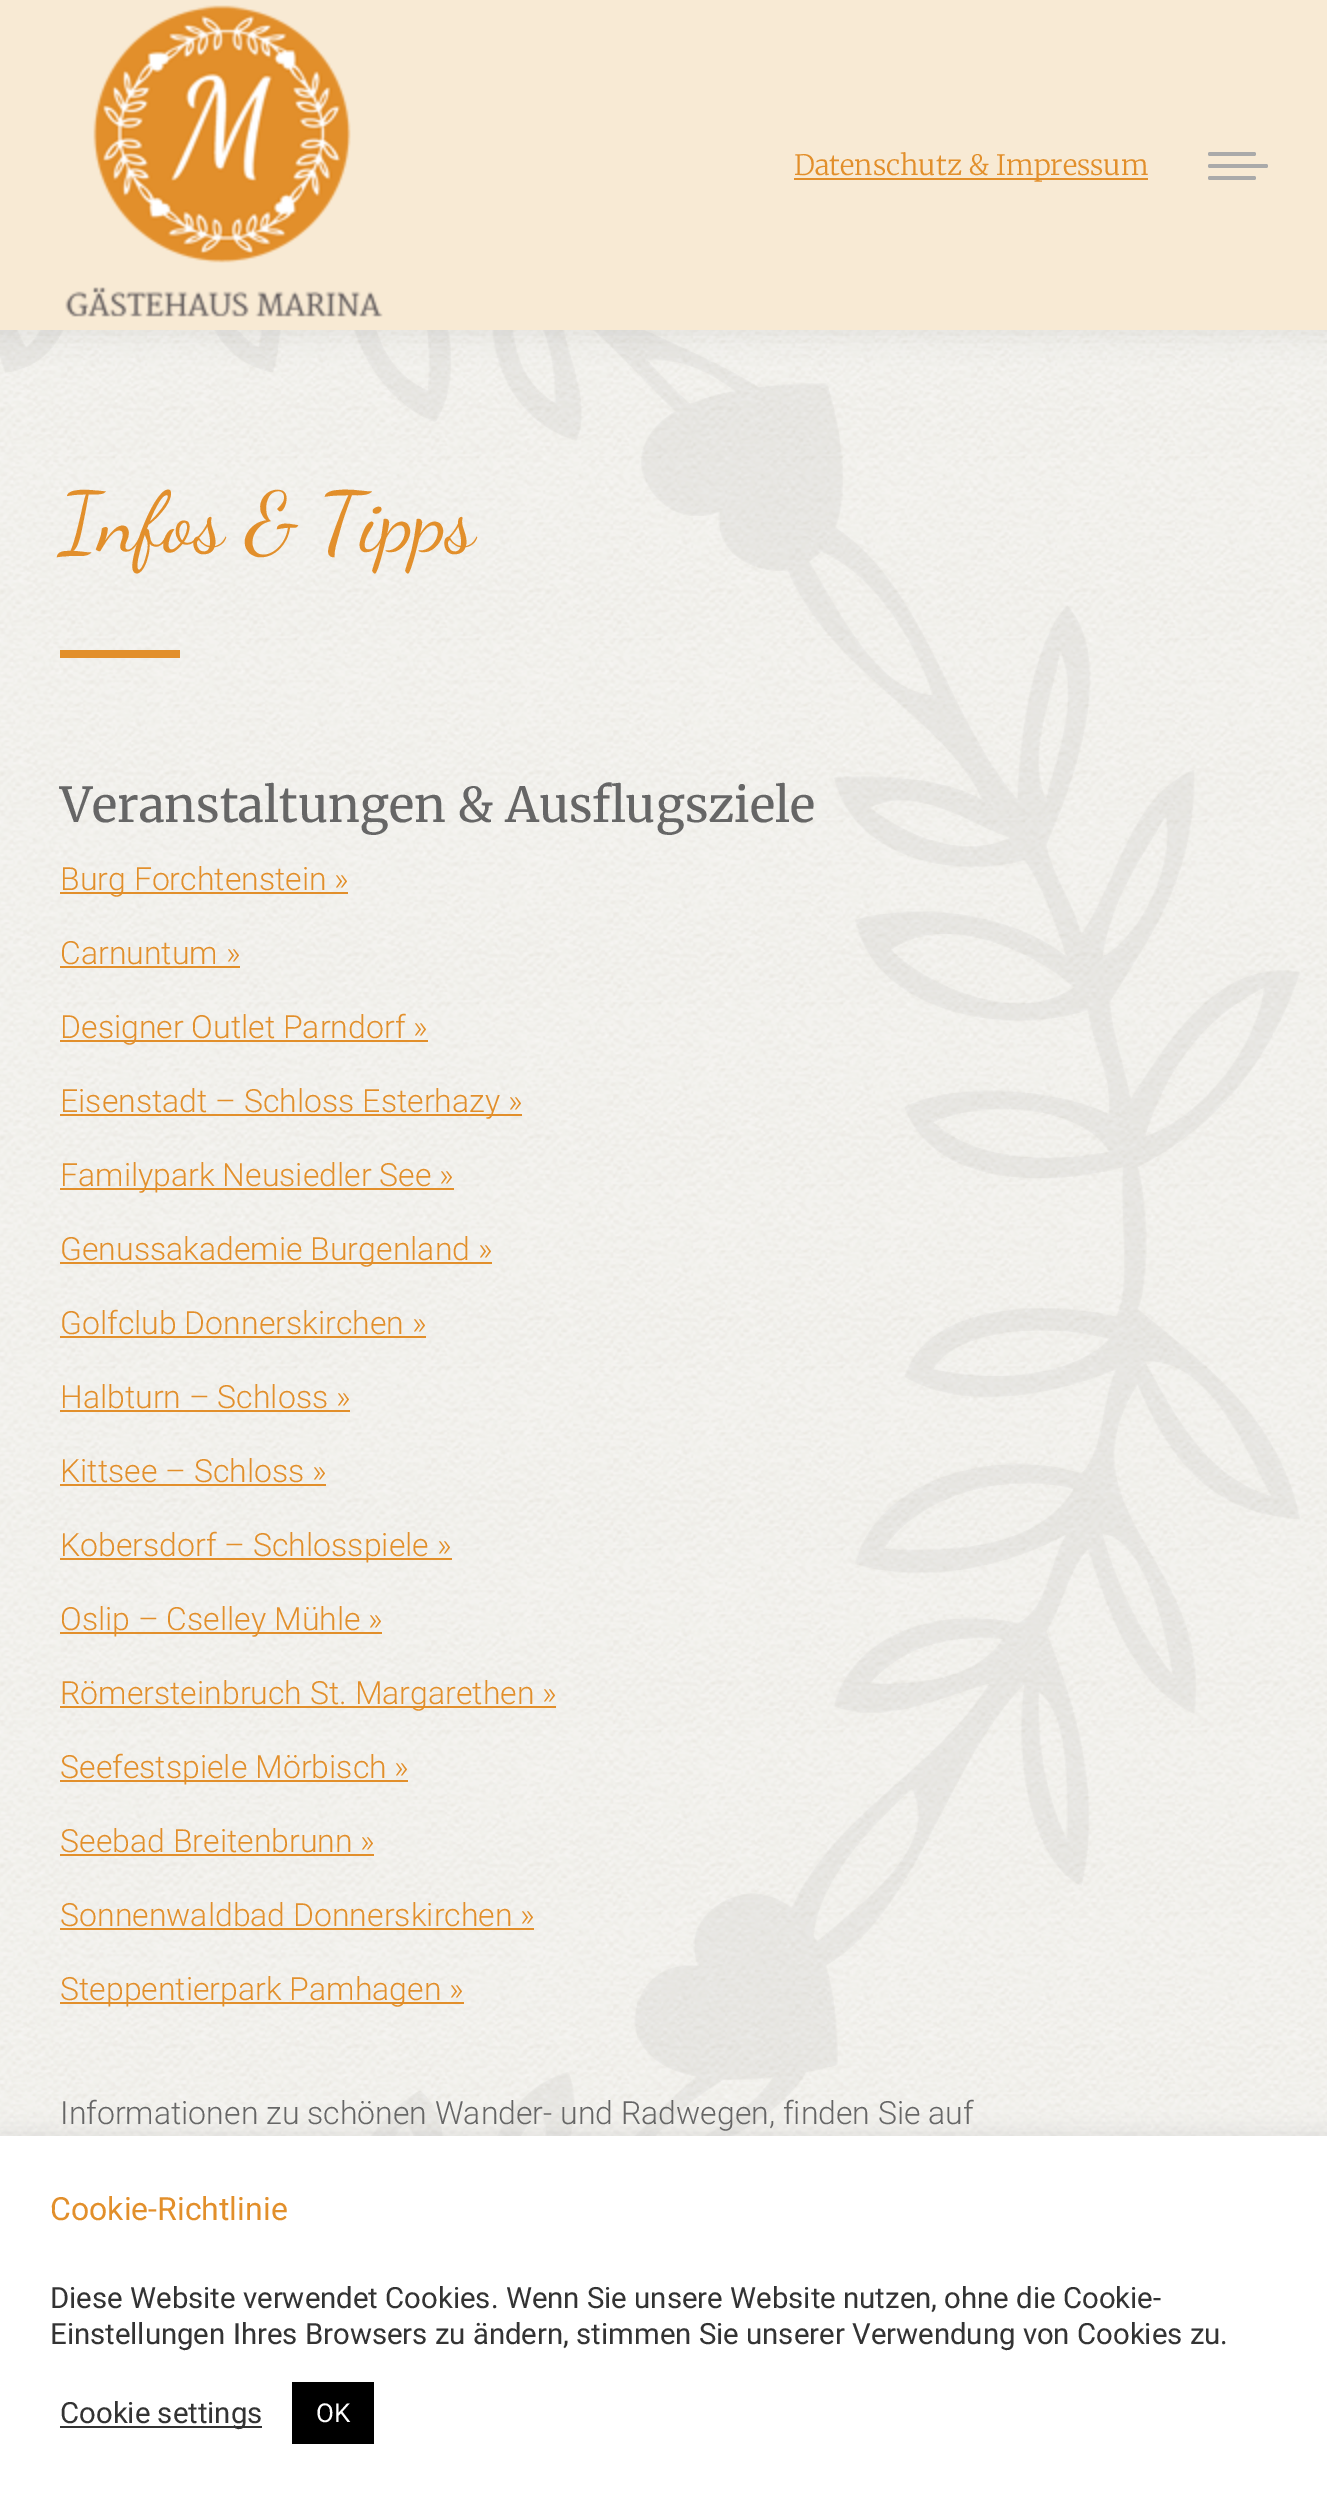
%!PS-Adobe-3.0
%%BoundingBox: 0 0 1327 2504
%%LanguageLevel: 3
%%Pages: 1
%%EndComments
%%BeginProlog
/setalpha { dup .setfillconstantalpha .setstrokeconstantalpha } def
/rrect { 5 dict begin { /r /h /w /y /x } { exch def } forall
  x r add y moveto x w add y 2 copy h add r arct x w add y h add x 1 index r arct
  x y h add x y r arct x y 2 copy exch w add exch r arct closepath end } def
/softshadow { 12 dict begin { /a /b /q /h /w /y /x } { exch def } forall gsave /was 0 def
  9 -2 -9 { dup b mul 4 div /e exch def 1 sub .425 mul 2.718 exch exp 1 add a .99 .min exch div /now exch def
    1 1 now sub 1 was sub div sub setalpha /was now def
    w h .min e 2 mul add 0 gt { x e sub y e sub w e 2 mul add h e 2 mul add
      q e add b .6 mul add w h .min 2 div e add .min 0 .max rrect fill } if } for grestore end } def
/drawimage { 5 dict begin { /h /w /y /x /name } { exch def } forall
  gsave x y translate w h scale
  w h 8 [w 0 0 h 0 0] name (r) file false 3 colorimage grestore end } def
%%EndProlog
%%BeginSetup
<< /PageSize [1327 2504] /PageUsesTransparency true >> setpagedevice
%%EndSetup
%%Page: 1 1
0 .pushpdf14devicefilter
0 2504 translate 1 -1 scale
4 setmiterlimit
1 setgray
0 0 1327 2504 rectfill
(images/1.raw) 0 330 1327 1806 drawimage
(images/3.raw) 0 330 1300 1806 drawimage
0 setgray
-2 -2 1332 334 0 15 0.07 softshadow
0.973 0.918 0.831 setrgbcolor
0 0 1327 330 rectfill
(images/2.raw) 65 5 318 312 drawimage
0.886 0.561 0.169 setrgbcolor
794 178 354 2 rectfill
0.667 setgray
1208 152 48 4 2 rrect fill
1208 164 60 4 2 rrect fill
1208 176 48 4 2 rrect fill
0.886 0.561 0.169 setrgbcolor
60 650 120 8 rectfill
60 892 288 2 rectfill
60 966 180 2 rectfill
60 1040 368 2 rectfill
60 1114 462 2 rectfill
60 1188 394 2 rectfill
60 1262 432 2 rectfill
60 1336 366 2 rectfill
60 1410 290 2 rectfill
60 1484 266 2 rectfill
60 1558 392 2 rectfill
60 1632 322 2 rectfill
60 1706 496 2 rectfill
60 1780 348 2 rectfill
60 1854 314 2 rectfill
60 1928 474 2 rectfill
60 2002 404 2 rectfill
0.675 0.671 0.671 setrgbcolor
0 2134 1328 368 0 10 0.3 softshadow
1 setgray
0 2136 1327 368 rectfill
0.2 setgray
60 2426 202 2 rectfill
0 setgray
292 2382 82 62 rectfill
/Merriweather-Light [28 0 0 -28 0 0] selectfont
0.886 0.561 0.169 setrgbcolor
794 175 moveto (Datenschutz & Impressum) show
/DancingScript-Regular [84 0 0 -84 0 0] selectfont
60 550 moveto (Infos & Tipps) show
/Merriweather-Regular [48 0 0 -48 0 0] selectfont
0.4 setgray
60 822 moveto (Veranstaltungen & Ausflugsziele) show
/Roboto-Light [32 0 0 -32 0 0] selectfont
0.886 0.561 0.169 setrgbcolor
60 890 moveto (Burg Forchtenstein ») show
60 964 moveto (Carnuntum ») show
60 1038 moveto (Designer Outlet Parndorf ») show
60 1112 moveto (Eisenstadt – Schloss Esterhazy ») show
60 1186 moveto (Familypark Neusiedler See ») show
60 1260 moveto (Genussakademie Burgenland ») show
60 1334 moveto (Golfclub Donnerskirchen ») show
60 1408 moveto (Halbturn – Schloss ») show
60 1482 moveto (Kittsee – Schloss ») show
60 1556 moveto (Kobersdorf – Schlosspiele ») show
60 1630 moveto (Oslip – Cselley Mühle ») show
60 1704 moveto (Römersteinbruch St. Margarethen ») show
60 1778 moveto (Seefestspiele Mörbisch ») show
60 1852 moveto (Seebad Breitenbrunn ») show
60 1926 moveto (Sonnenwaldbad Donnerskirchen ») show
60 2000 moveto (Steppentierpark Pamhagen ») show
0.4 setgray
60 2124 moveto (Informationen zu schönen Wander- und Radwegen, finden Sie auf) show
/Roboto-Regular [32 0 0 -32 0 0] selectfont
0.886 0.561 0.169 setrgbcolor
50 2220 moveto (Cookie-Richtlinie) show
/Roboto-Regular [29.35 0 0 -29.35 0 0] selectfont
0.2 setgray
50 2308 moveto (Diese Website verwendet Cookies. Wenn Sie unsere Website nutzen, ohne die Cookie-) show
50 2344 moveto (Einstellungen Ihres Browsers zu ändern, stimmen Sie unserer Verwendung von Cookies zu.) show
60 2423 moveto (Cookie settings) show
/Roboto-Regular [26 0 0 -26 0 0] selectfont
1 setgray
316 2422 moveto (OK) show
.poppdf14devicefilter showpage
%%EOF
